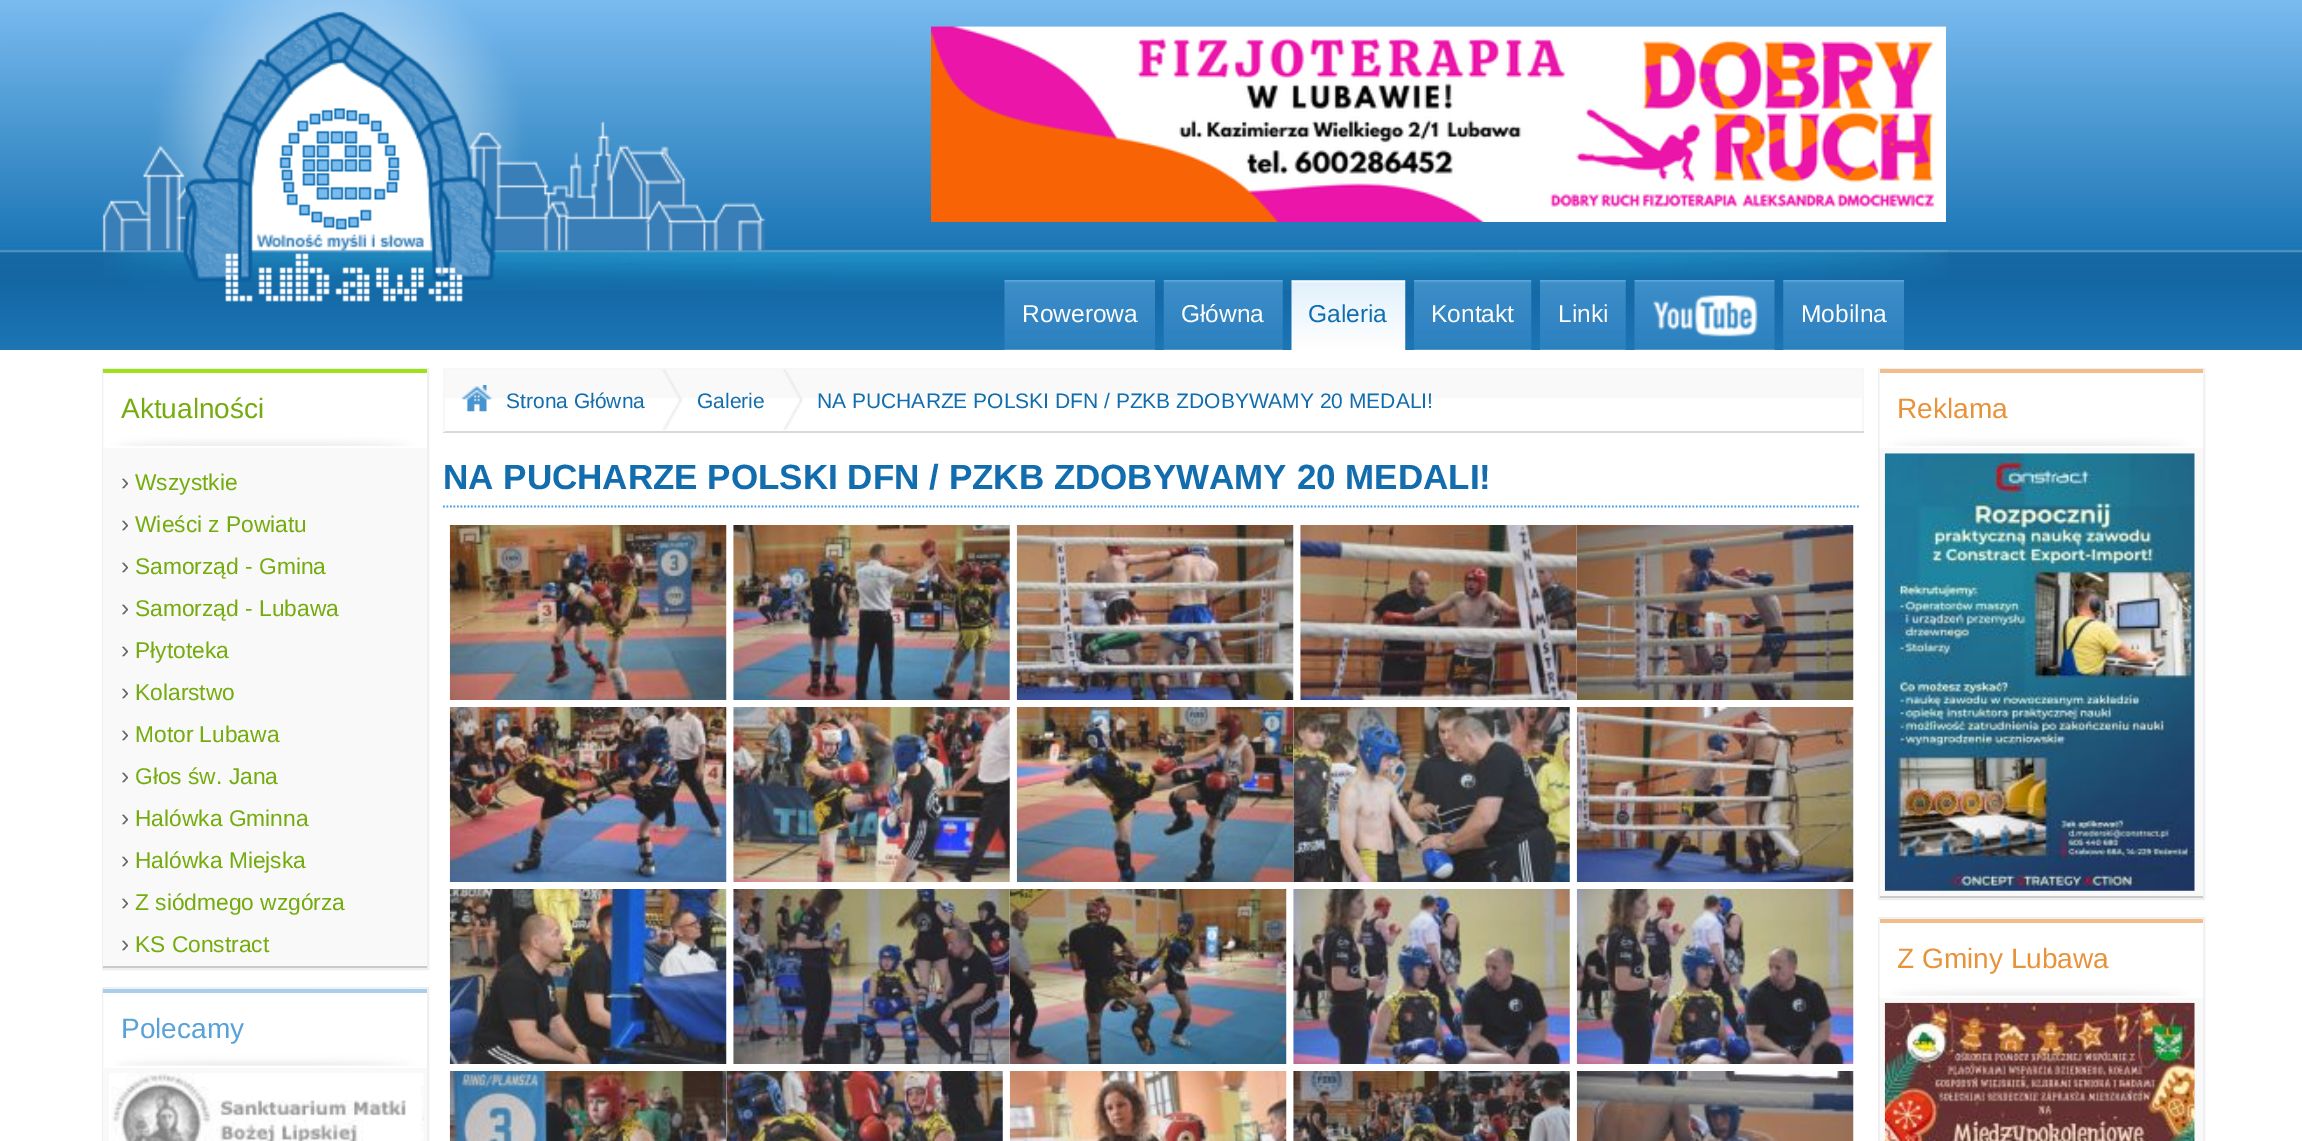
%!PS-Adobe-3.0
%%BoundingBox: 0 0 2302 1141
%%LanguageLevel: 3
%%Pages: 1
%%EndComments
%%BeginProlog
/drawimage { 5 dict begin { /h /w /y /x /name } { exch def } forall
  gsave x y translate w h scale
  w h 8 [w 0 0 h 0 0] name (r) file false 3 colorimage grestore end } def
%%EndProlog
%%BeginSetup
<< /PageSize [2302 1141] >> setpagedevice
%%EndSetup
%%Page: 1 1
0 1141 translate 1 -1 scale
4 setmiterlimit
1 setgray
0 0 2302 1141 rectfill
(images/1.raw) 0 0 2302 350 drawimage
(images/2.raw) 103 250 1845 41 drawimage
(images/3.raw) 102 0 664 302 drawimage
(images/4.raw) 931 26 1015 196 drawimage
(images/5.raw) 1004 280 151 70 drawimage
(images/6.raw) 1163 280 120 70 drawimage
(images/7.raw) 1291 280 115 70 drawimage
(images/8.raw) 1414 280 118 70 drawimage
(images/9.raw) 1540 280 86 70 drawimage
(images/10.raw) 1634 280 141 70 drawimage
(images/11.raw) 1783 280 121 70 drawimage
0.937 setgray
2 setlinewidth
103 369 325 600 rectstroke
(images/12.raw) 103 373 324 73 drawimage
0.608 0.886 0.086 setrgbcolor
103 369 324 4 rectfill
1 setgray
103 446 1 2 rectfill
0.976 setgray
103 448 324 518 rectfill
0.792 setgray
103 966 324 2 rectfill
0.937 setgray
103 988 325 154 rectstroke
(images/13.raw) 103 988 324 78 drawimage
0.655 0.808 0.922 setrgbcolor
103 989 324 4 rectfill
1 setgray
103 1066 1 2 rectfill
0.976 setgray
103 1068 324 73 rectfill
(images/14.raw) 109 1073 315 68 drawimage
445 370 1417 28 rectfill
0.969 setgray
443 368 1421 2 rectfill
1862 368 2 64 rectfill
0.851 setgray
443 431 1421 2 rectfill
0.969 setgray
443 368 2 64 rectfill
(images/15.raw) 461 385 31 27 drawimage
(images/16.raw) 662 369 21 61 drawimage
(images/17.raw) 783 369 20 61 drawimage
0.282 0.612 0.882 setrgbcolor
1.8 setlinewidth
[1.75 1.75] 0 setdash
newpath 443 506.5 moveto 1860 506.5 lineto stroke
(images/18.raw) 449 525 278 175 drawimage
(images/19.raw) 733 525 277 175 drawimage
(images/20.raw) 1016 525 278 175 drawimage
(images/21.raw) 1300 525 277 175 drawimage
(images/22.raw) 1576 525 278 175 drawimage
(images/23.raw) 449 707 278 175 drawimage
(images/24.raw) 733 707 277 175 drawimage
(images/25.raw) 1016 707 278 175 drawimage
(images/26.raw) 1293 707 277 175 drawimage
(images/27.raw) 1576 707 278 175 drawimage
(images/28.raw) 449 889 278 175 drawimage
(images/29.raw) 733 889 277 175 drawimage
(images/30.raw) 1009 889 278 175 drawimage
(images/31.raw) 1293 889 277 175 drawimage
(images/32.raw) 1576 889 278 175 drawimage
(images/33.raw) 449 1071 278 70 drawimage
(images/34.raw) 726 1071 277 70 drawimage
(images/35.raw) 1009 1071 278 70 drawimage
(images/36.raw) 1293 1071 277 70 drawimage
(images/37.raw) 1576 1071 278 70 drawimage
0.937 setgray
2 setlinewidth
[] 0 setdash
1879 369 325 530 rectstroke
(images/38.raw) 1879 369 325 79 drawimage
0.945 0.745 0.545 setrgbcolor
1880 369 323 4 rectfill
1 setgray
1897 446 284 1 rectfill
0.976 setgray
1880 448 323 448 rectfill
0.792 setgray
1880 896 323 2 rectfill
(images/39.raw) 1884 453 311 438 drawimage
0.937 setgray
1879 918 325 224 rectstroke
(images/40.raw) 1879 918 325 80 drawimage
0.945 0.745 0.545 setrgbcolor
1880 919 323 4 rectfill
1 setgray
1991 996 99 1 rectfill
0.976 setgray
1880 998 323 143 rectfill
(images/41.raw) 1884 1002 311 139 drawimage
/LiberationSans-Regular [24.5 0 0 -24.5 0 0] selectfont
1 setgray
1022 322 moveto (Rowerowa) show
1181 322 moveto (Główna) show
0.067 0.427 0.682 setrgbcolor
1308 322 moveto (Galeria) show
1 setgray
1431 322 moveto (Kontakt) show
1558 322 moveto (Linki) show
1801 322 moveto (Mobilna) show
/LiberationSans-Regular [28 0 0 -28 0 0] selectfont
0.455 0.675 0.055 setrgbcolor
121 418 moveto (Aktualności) show
/LiberationSans-Regular [24.5 0 0 -24.5 0 0] selectfont
0.4 setgray
121 490 moveto (›) show
/LiberationSans-Regular [22.75 0 0 -22.75 0 0] selectfont
0.455 0.675 0.055 setrgbcolor
135 490 moveto (Wszystkie) show
/LiberationSans-Regular [24.5 0 0 -24.5 0 0] selectfont
0.4 setgray
121 532 moveto (›) show
/LiberationSans-Regular [22.75 0 0 -22.75 0 0] selectfont
0.455 0.675 0.055 setrgbcolor
135 532 moveto (Wieści z Powiatu) show
/LiberationSans-Regular [24.5 0 0 -24.5 0 0] selectfont
0.4 setgray
121 574 moveto (›) show
/LiberationSans-Regular [22.75 0 0 -22.75 0 0] selectfont
0.455 0.675 0.055 setrgbcolor
135 574 moveto (Samorząd - Gmina) show
/LiberationSans-Regular [24.5 0 0 -24.5 0 0] selectfont
0.4 setgray
121 616 moveto (›) show
/LiberationSans-Regular [22.75 0 0 -22.75 0 0] selectfont
0.455 0.675 0.055 setrgbcolor
135 616 moveto (Samorząd - Lubawa) show
/LiberationSans-Regular [24.5 0 0 -24.5 0 0] selectfont
0.4 setgray
121 658 moveto (›) show
/LiberationSans-Regular [22.75 0 0 -22.75 0 0] selectfont
0.455 0.675 0.055 setrgbcolor
135 658 moveto (Płytoteka) show
/LiberationSans-Regular [24.5 0 0 -24.5 0 0] selectfont
0.4 setgray
121 700 moveto (›) show
/LiberationSans-Regular [22.75 0 0 -22.75 0 0] selectfont
0.455 0.675 0.055 setrgbcolor
135 700 moveto (Kolarstwo) show
/LiberationSans-Regular [24.5 0 0 -24.5 0 0] selectfont
0.4 setgray
121 742 moveto (›) show
/LiberationSans-Regular [22.75 0 0 -22.75 0 0] selectfont
0.455 0.675 0.055 setrgbcolor
135 742 moveto (Motor Lubawa) show
/LiberationSans-Regular [24.5 0 0 -24.5 0 0] selectfont
0.4 setgray
121 784 moveto (›) show
/LiberationSans-Regular [22.75 0 0 -22.75 0 0] selectfont
0.455 0.675 0.055 setrgbcolor
135 784 moveto (Głos św. Jana) show
/LiberationSans-Regular [24.5 0 0 -24.5 0 0] selectfont
0.4 setgray
121 826 moveto (›) show
/LiberationSans-Regular [22.75 0 0 -22.75 0 0] selectfont
0.455 0.675 0.055 setrgbcolor
135 826 moveto (Halówka Gminna) show
/LiberationSans-Regular [24.5 0 0 -24.5 0 0] selectfont
0.4 setgray
121 868 moveto (›) show
/LiberationSans-Regular [22.75 0 0 -22.75 0 0] selectfont
0.455 0.675 0.055 setrgbcolor
135 868 moveto (Halówka Miejska) show
/LiberationSans-Regular [24.5 0 0 -24.5 0 0] selectfont
0.4 setgray
121 910 moveto (›) show
/LiberationSans-Regular [22.75 0 0 -22.75 0 0] selectfont
0.455 0.675 0.055 setrgbcolor
135 910 moveto (Z siódmego wzgórza) show
/LiberationSans-Regular [24.5 0 0 -24.5 0 0] selectfont
0.4 setgray
121 952 moveto (›) show
/LiberationSans-Regular [22.75 0 0 -22.75 0 0] selectfont
0.455 0.675 0.055 setrgbcolor
135 952 moveto (KS Constract) show
/LiberationSans-Regular [28 0 0 -28 0 0] selectfont
0.341 0.635 0.851 setrgbcolor
121 1038 moveto (Polecamy) show
/LiberationSans-Regular [21 0 0 -21 0 0] selectfont
0.067 0.427 0.682 setrgbcolor
506 408 moveto (Strona Główna) show
697 408 moveto (Galerie) show
817 408 moveto (NA PUCHARZE POLSKI DFN / PZKB ZDOBYWAMY 20 MEDALI!) show
/LiberationSans-Bold [35 0 0 -35 0 0] selectfont
443 489 moveto (NA PUCHARZE POLSKI DFN / PZKB ZDOBYWAMY 20 MEDALI!) show
/LiberationSans-Regular [28 0 0 -28 0 0] selectfont
0.91 0.573 0.224 setrgbcolor
1897 418 moveto (Reklama) show
1897 968 moveto (Z Gminy Lubawa) show
showpage
%%EOF
